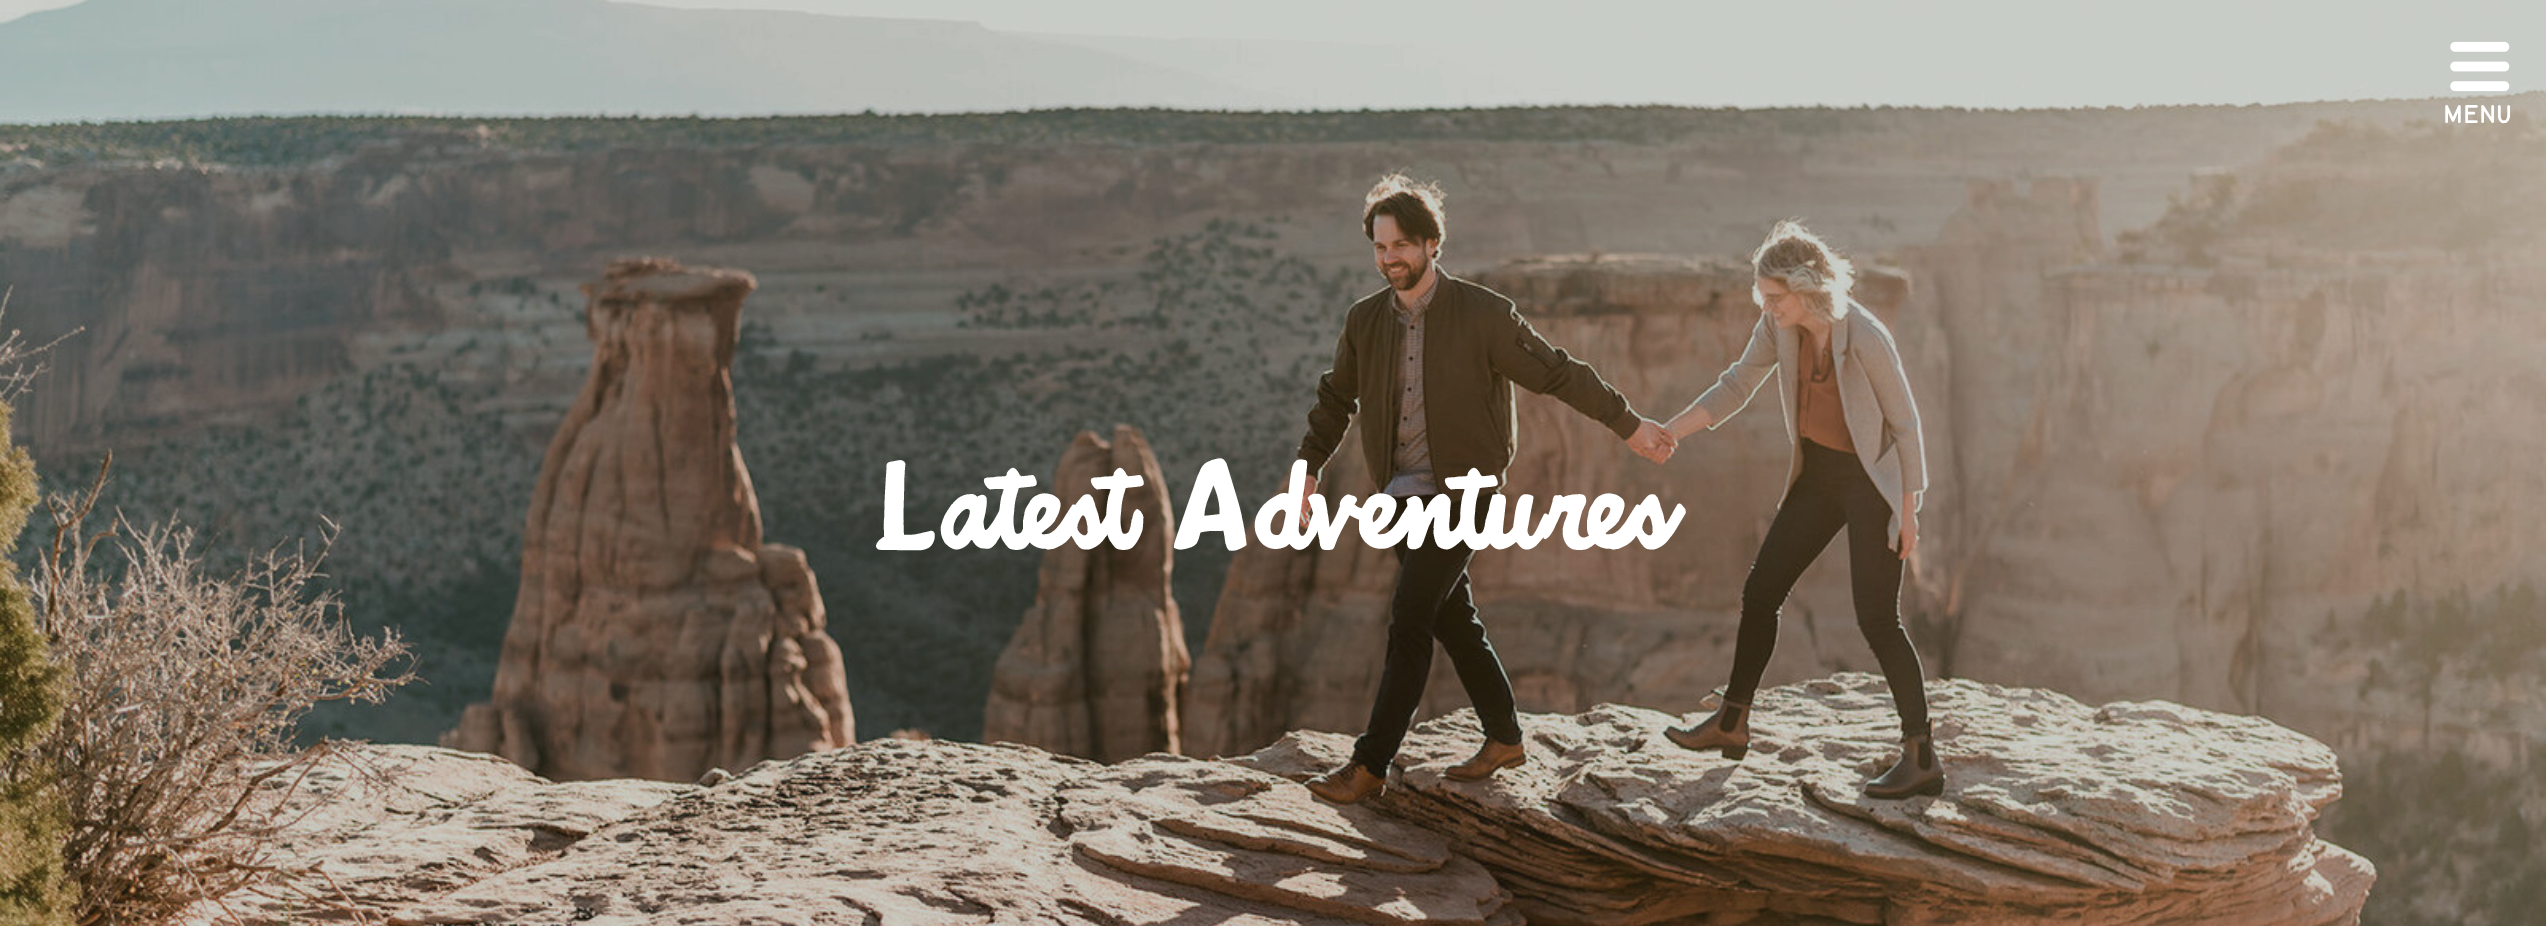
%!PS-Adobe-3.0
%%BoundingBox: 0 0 2546 926
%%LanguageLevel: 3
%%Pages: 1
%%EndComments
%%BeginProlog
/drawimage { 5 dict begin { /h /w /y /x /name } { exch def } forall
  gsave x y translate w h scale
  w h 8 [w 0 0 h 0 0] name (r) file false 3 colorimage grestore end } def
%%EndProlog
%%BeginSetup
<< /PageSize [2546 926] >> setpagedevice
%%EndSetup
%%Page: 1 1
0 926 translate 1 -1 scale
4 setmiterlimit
1 setgray
0 0 2546 926 rectfill
(images/1.raw) 0 0 2546 926 drawimage
(images/2.raw) 2450 41 60 51 drawimage
/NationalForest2-Regular [24.5 0 0 -24.5 0 0] selectfont
2443 123 moveto (MENU) show
/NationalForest-Regular [117.25 0 0 -117.25 0 0] selectfont
871 550 moveto (Latest Adventures) show
showpage
%%EOF
